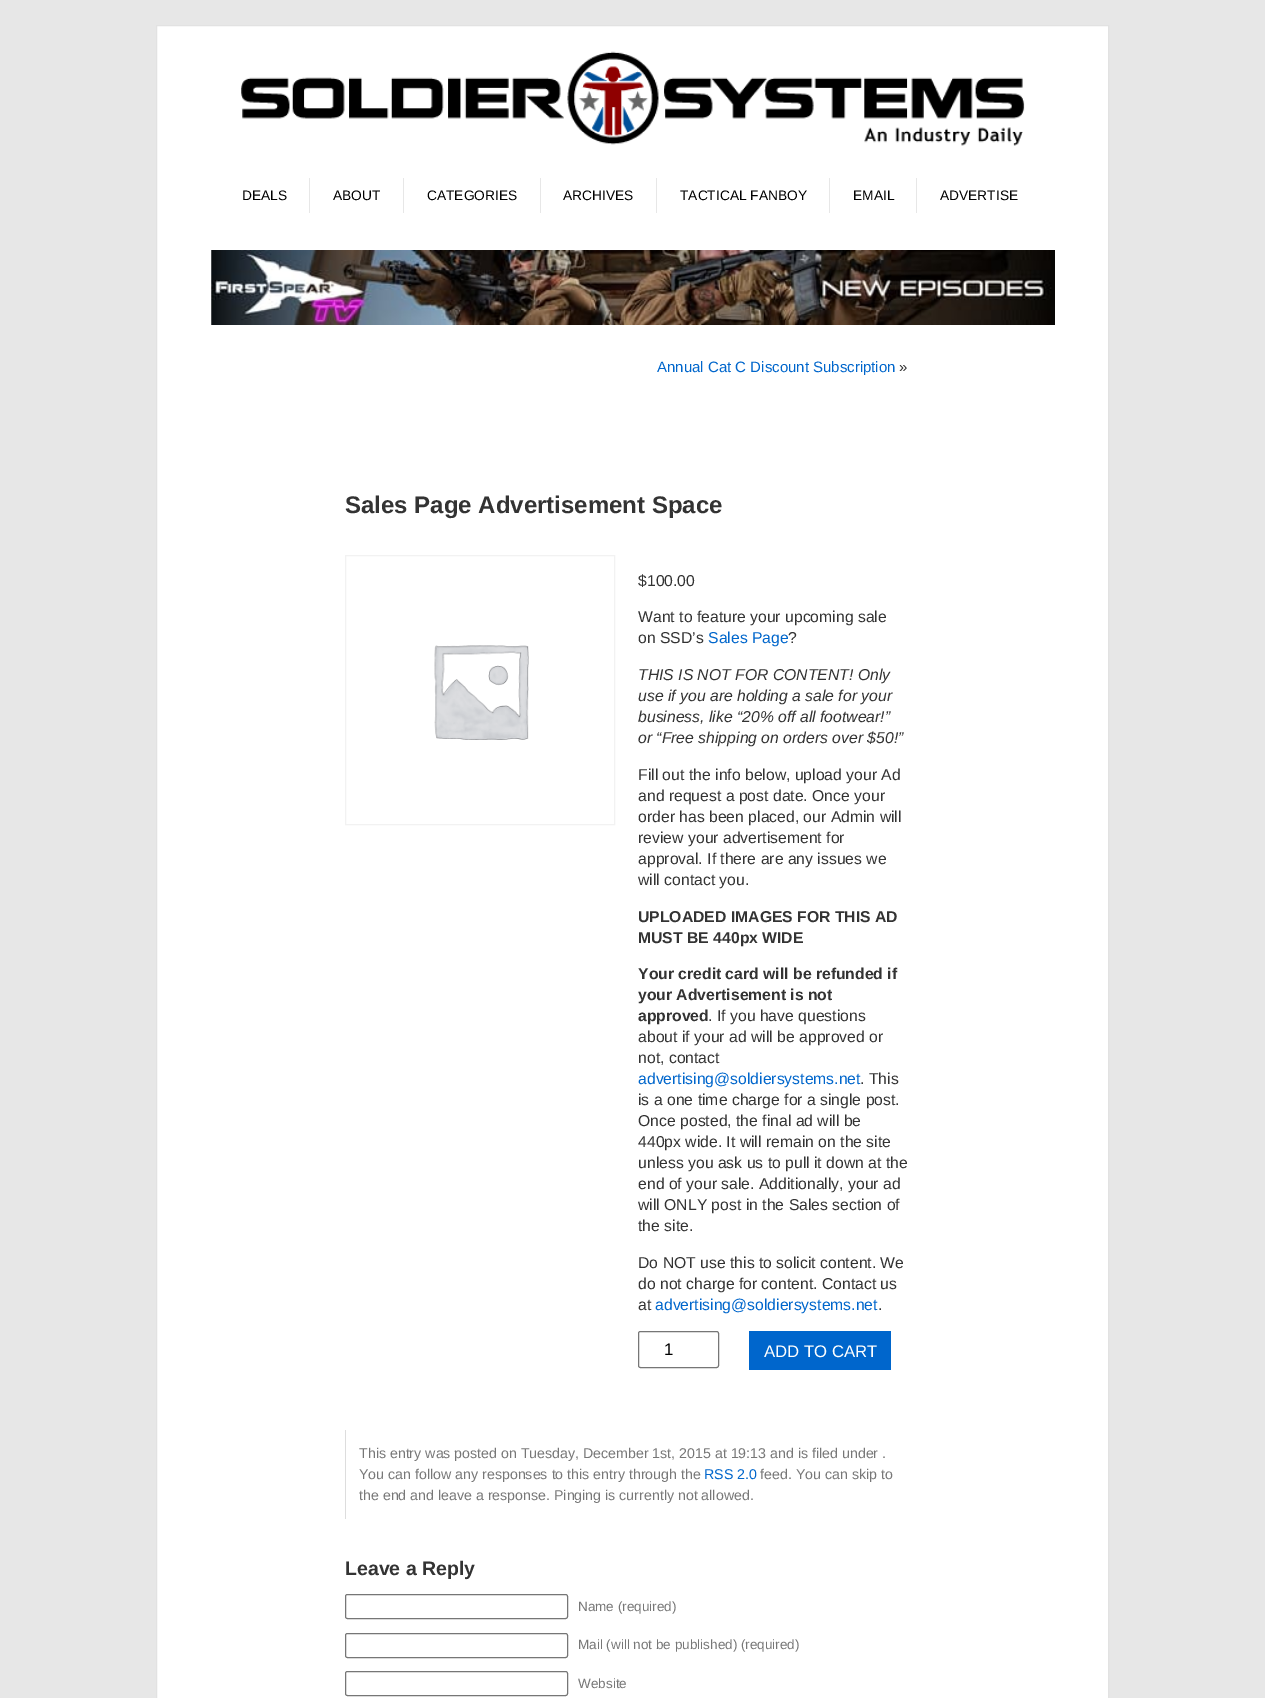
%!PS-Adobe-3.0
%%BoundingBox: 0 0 1265 1698
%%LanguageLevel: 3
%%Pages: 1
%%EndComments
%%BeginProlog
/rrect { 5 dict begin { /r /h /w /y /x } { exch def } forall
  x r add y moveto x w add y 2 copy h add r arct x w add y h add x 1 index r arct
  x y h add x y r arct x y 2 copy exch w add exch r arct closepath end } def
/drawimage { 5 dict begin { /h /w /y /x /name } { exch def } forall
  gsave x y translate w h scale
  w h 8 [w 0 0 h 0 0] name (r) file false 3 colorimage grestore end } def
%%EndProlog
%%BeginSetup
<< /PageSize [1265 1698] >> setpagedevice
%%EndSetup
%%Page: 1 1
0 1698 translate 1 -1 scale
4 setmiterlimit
0.906 setgray
0 0 1265 1698 rectfill
1 setgray
newpath 156.5 25.5 moveto 1108.5 25.5 lineto 1108.5 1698.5 lineto 156.5 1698.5 lineto closepath gsave fill grestore
0.886 setgray
stroke
(images/1.raw) 241 51 784 95 drawimage
0.906 setgray
309 178 1 35 rectfill
403 178 1 35 rectfill
540 178 1 35 rectfill
656 178 1 35 rectfill
829 178 1 35 rectfill
916 178 1 35 rectfill
(images/2.raw) 211 250 844 75 drawimage
0.949 setgray
345.5 555.5 269 269 rectstroke
(images/3.raw) 434 645 95 95 drawimage
0.463 setgray
638.5 1331.5 80 36 2 rrect stroke
0 0.4 0.8 setrgbcolor
749 1331 142 39 rectfill
0.867 setgray
345 1430 1 89 rectfill
0.463 setgray
345.5 1594.5 222 24 2 rrect stroke
345.5 1633.5 222 24 2 rrect stroke
345.5 1671.5 222 24 2 rrect stroke
/LiberationSans-Regular [13.75 0 0 -13.75 0 0] selectfont
0 setgray
242 200 moveto (DEALS) show
333 200 moveto (ABOUT) show
427 200 moveto (CATEGORIES) show
563 200 moveto (ARCHIVES) show
680 200 moveto (TACTICAL FANBOY) show
853 200 moveto (EMAIL) show
940 200 moveto (ADVERTISE) show
/LiberationSans-Regular [15 0 0 -15 0 0] selectfont
0 0.4 0.8 setrgbcolor
657 372 moveto (Annual Cat C Discount Subscription) show
0.2 setgray
899 372 moveto (») show
/LiberationSans-Bold [24 0 0 -24 0 0] selectfont
345 513 moveto (Sales Page Advertisement Space) show
/LiberationSans-Regular [15.75 0 0 -15.75 0 0] selectfont
638 586 moveto ($100.00) show
638 622 moveto (Want to feature your upcoming sale) show
638 643 moveto (on SSD’s) show
0 0.4 0.8 setrgbcolor
708 643 moveto (Sales Page) show
0.2 setgray
788 643 moveto (?) show
/LiberationSans-Italic [15.75 0 0 -15.75 0 0] selectfont
638 680 moveto (THIS IS NOT FOR CONTENT! Only) show
638 701 moveto (use if you are holding a sale for your) show
638 722 moveto (business, like “20% off all footwear!”) show
638 743 moveto (or “Free shipping on orders over $50!”) show
/LiberationSans-Regular [15.75 0 0 -15.75 0 0] selectfont
638 780 moveto (Fill out the info below, upload your Ad) show
638 801 moveto (and request a post date. Once your) show
638 822 moveto (order has been placed, our Admin will) show
638 843 moveto (review your advertisement for) show
638 864 moveto (approval. If there are any issues we) show
638 885 moveto (will contact you.) show
/LiberationSans-Bold [15.75 0 0 -15.75 0 0] selectfont
638 922 moveto (UPLOADED IMAGES FOR THIS AD) show
638 943 moveto (MUST BE 440px WIDE) show
638 979 moveto (Your credit card will be refunded if) show
638 1000 moveto (your Advertisement is not) show
638 1021 moveto (approved) show
/LiberationSans-Regular [15.75 0 0 -15.75 0 0] selectfont
708 1021 moveto (. If you have questions) show
638 1042 moveto (about if your ad will be approved or) show
638 1063 moveto (not, contact) show
0 0.4 0.8 setrgbcolor
638 1084 moveto (advertising@soldiersystems.net) show
0.2 setgray
860 1084 moveto (. This) show
638 1105 moveto (is a one time charge for a single post.) show
638 1126 moveto (Once posted, the final ad will be) show
638 1147 moveto (440px wide. It will remain on the site) show
638 1168 moveto (unless you ask us to pull it down at the) show
638 1189 moveto (end of your sale. Additionally, your ad) show
638 1210 moveto (will ONLY post in the Sales section of) show
638 1231 moveto (the site.) show
638 1268 moveto (Do NOT use this to solicit content. We) show
638 1289 moveto (do not charge for content. Contact us) show
638 1310 moveto (at) show
0 0.4 0.8 setrgbcolor
655 1310 moveto (advertising@soldiersystems.net) show
0.2 setgray
878 1310 moveto (.) show
/LiberationSans-Regular [16.75 0 0 -16.75 0 0] selectfont
0 setgray
664 1355 moveto (1) show
1 setgray
764 1357 moveto (ADD TO CART) show
/LiberationSans-Regular [14.2 0 0 -14.2 0 0] selectfont
0.467 setgray
359 1458 moveto (This entry was posted on Tuesday, December 1st, 2015 at 19:13 and is filed under .) show
359 1479 moveto (You can follow any responses to this entry through the) show
0 0.4 0.8 setrgbcolor
704 1479 moveto (RSS 2.0) show
0.467 setgray
760 1479 moveto (feed. You can skip to) show
359 1500 moveto (the end and leave a response. Pinging is currently not allowed.) show
/LiberationSans-Bold [19.5 0 0 -19.5 0 0] selectfont
0.2 setgray
345 1575 moveto (Leave a Reply) show
/LiberationSans-Regular [13.5 0 0 -13.5 0 0] selectfont
0.467 setgray
578 1611 moveto (Name \(required\)) show
578 1649 moveto (Mail \(will not be published\) \(required\)) show
578 1688 moveto (Website) show
showpage
%%EOF
